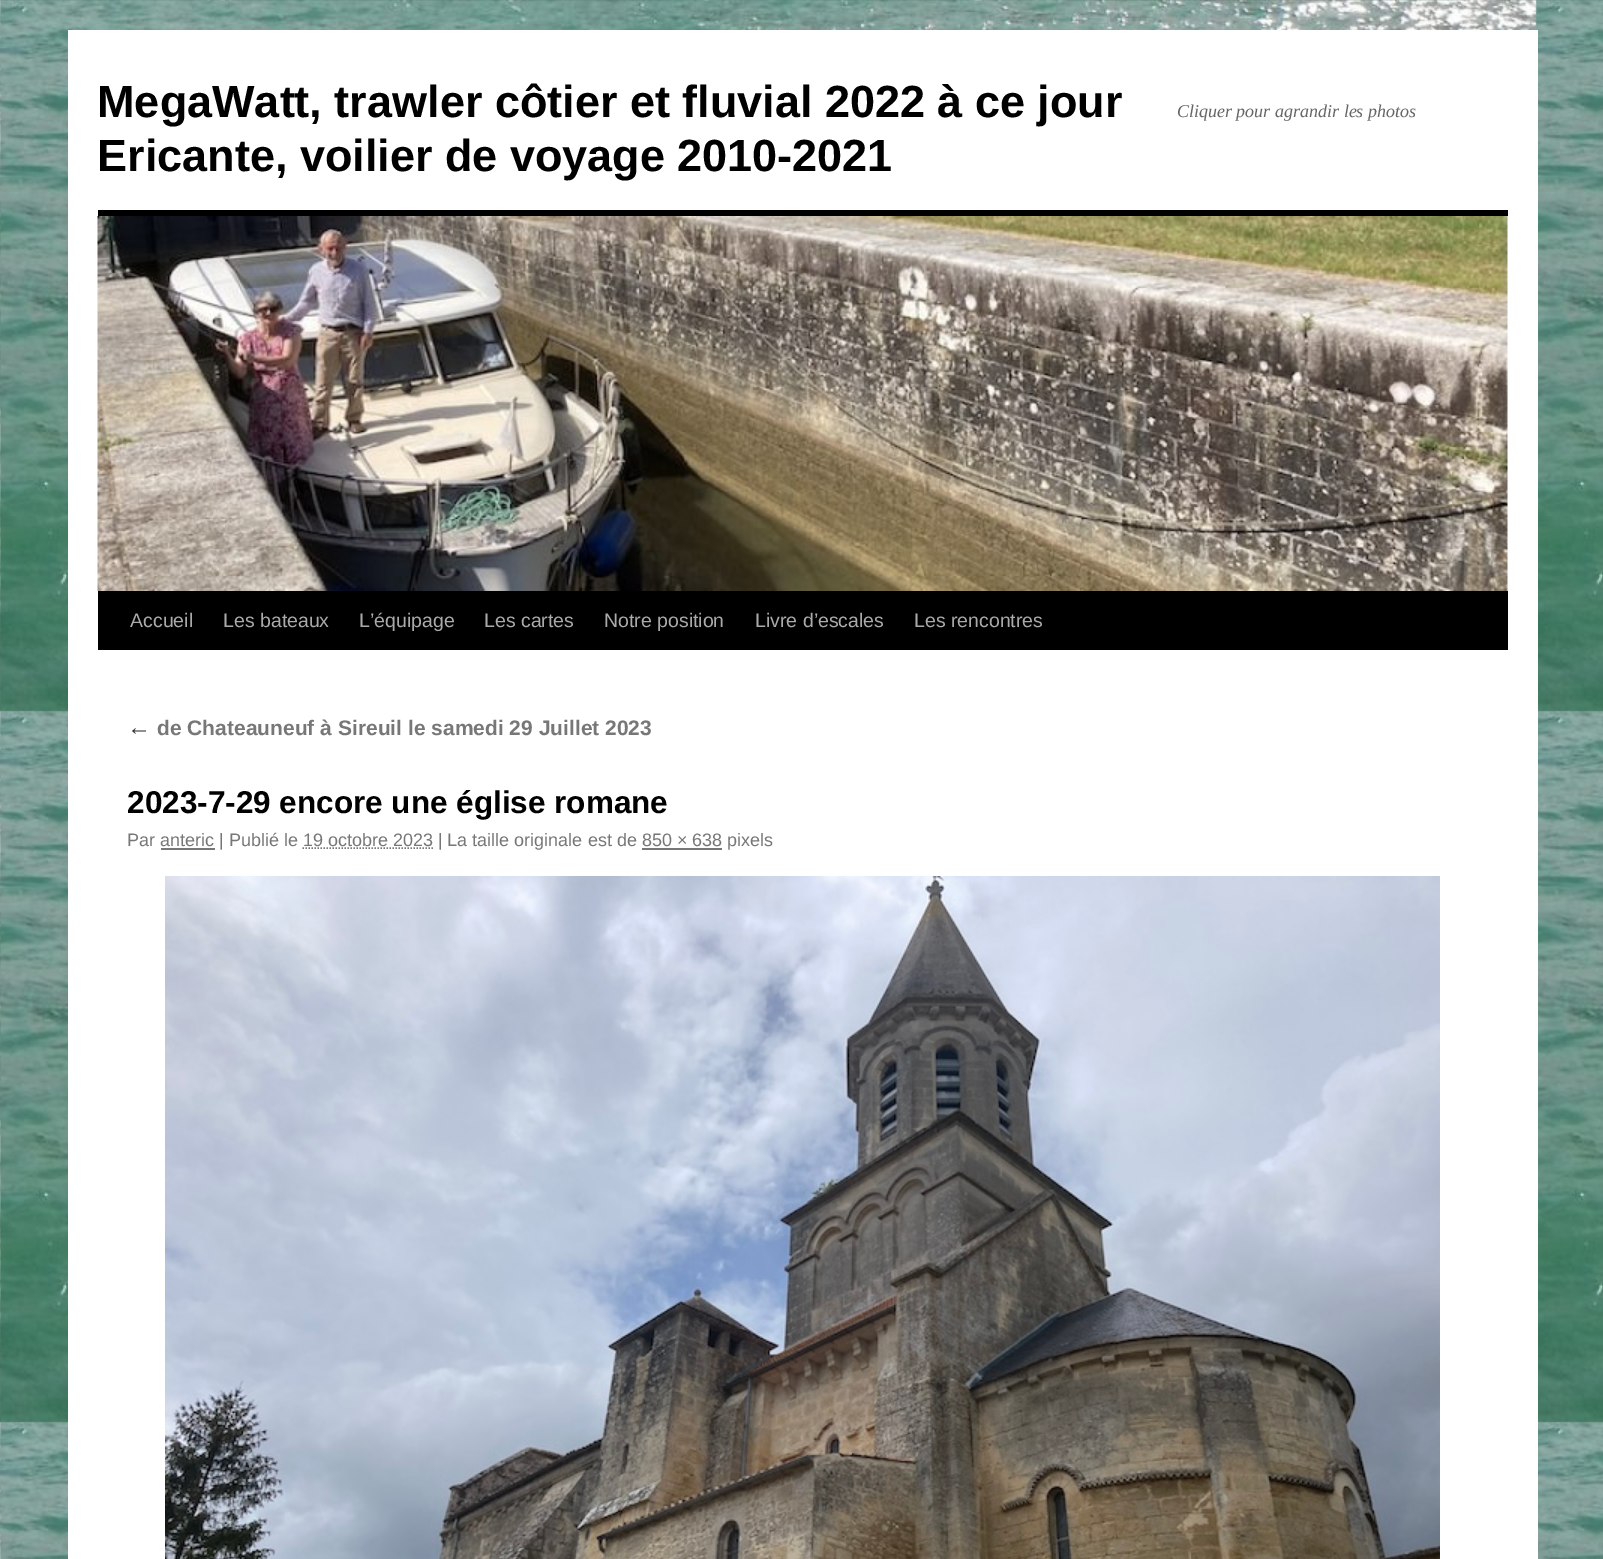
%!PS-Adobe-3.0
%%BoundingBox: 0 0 1603 1559
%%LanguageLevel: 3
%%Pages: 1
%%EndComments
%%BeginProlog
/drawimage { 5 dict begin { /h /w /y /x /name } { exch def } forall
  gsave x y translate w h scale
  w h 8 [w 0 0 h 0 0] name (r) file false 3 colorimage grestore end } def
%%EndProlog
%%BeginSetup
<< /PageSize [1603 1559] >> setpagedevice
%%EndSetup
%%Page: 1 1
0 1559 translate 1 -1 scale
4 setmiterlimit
1 setgray
0 0 1603 1559 rectfill
(images/1.raw) 0 0 1603 1559 drawimage
68 30 1470 1529 rectfill
0 setgray
98 210 1410 6 rectfill
98 591 1410 59 rectfill
(images/2.raw) 97 216 1411 375 drawimage
0.467 setgray
161 848 54 2 rectfill
1.5 setlinewidth
[1.5 1.5] 0 setdash
newpath 302.5 848 moveto 433 848 lineto stroke
642 848 80 2 rectfill
(images/3.raw) 165 876 1275 683 drawimage
/LiberationSans-Bold [45 0 0 -45 0 0] selectfont
0 setgray
97 117 moveto (MegaWatt, trawler côtier et fluvial 2022 à ce jour) show
97 171 moveto (Ericante, voilier de voyage 2010-2021) show
/LiberationSerif-Italic [18 0 0 -18 0 0] selectfont
0.4 setgray
1177 117 moveto (Cliquer pour agrandir les photos) show
/LiberationSans-Regular [19.5 0 0 -19.5 0 0] selectfont
0.667 setgray
130 627 moveto (Accueil) show
223 627 moveto (Les bateaux) show
359 627 moveto (L’équipage) show
484 627 moveto (Les cartes) show
604 627 moveto (Notre position) show
755 627 moveto (Livre d’escales) show
914 627 moveto (Les rencontres) show
/LiberationSerif-Italic [24 0 0 -24 0 0] selectfont
0.2 setgray
127 735 moveto (←) show
/LiberationSans-Bold [21 0 0 -21 0 0] selectfont
0.467 setgray
157 735 moveto (de Chateauneuf à Sireuil le samedi 29 Juillet 2023) show
/LiberationSans-Bold [31.5 0 0 -31.5 0 0] selectfont
0 setgray
127 813 moveto (2023-7-29 encore une église romane) show
/LiberationSans-Regular [18 0 0 -18 0 0] selectfont
0.467 setgray
127 846 moveto (Par anteric | Publié le 19 octobre 2023 | La taille originale est de 850 × 638 pixels) show
showpage
%%EOF
